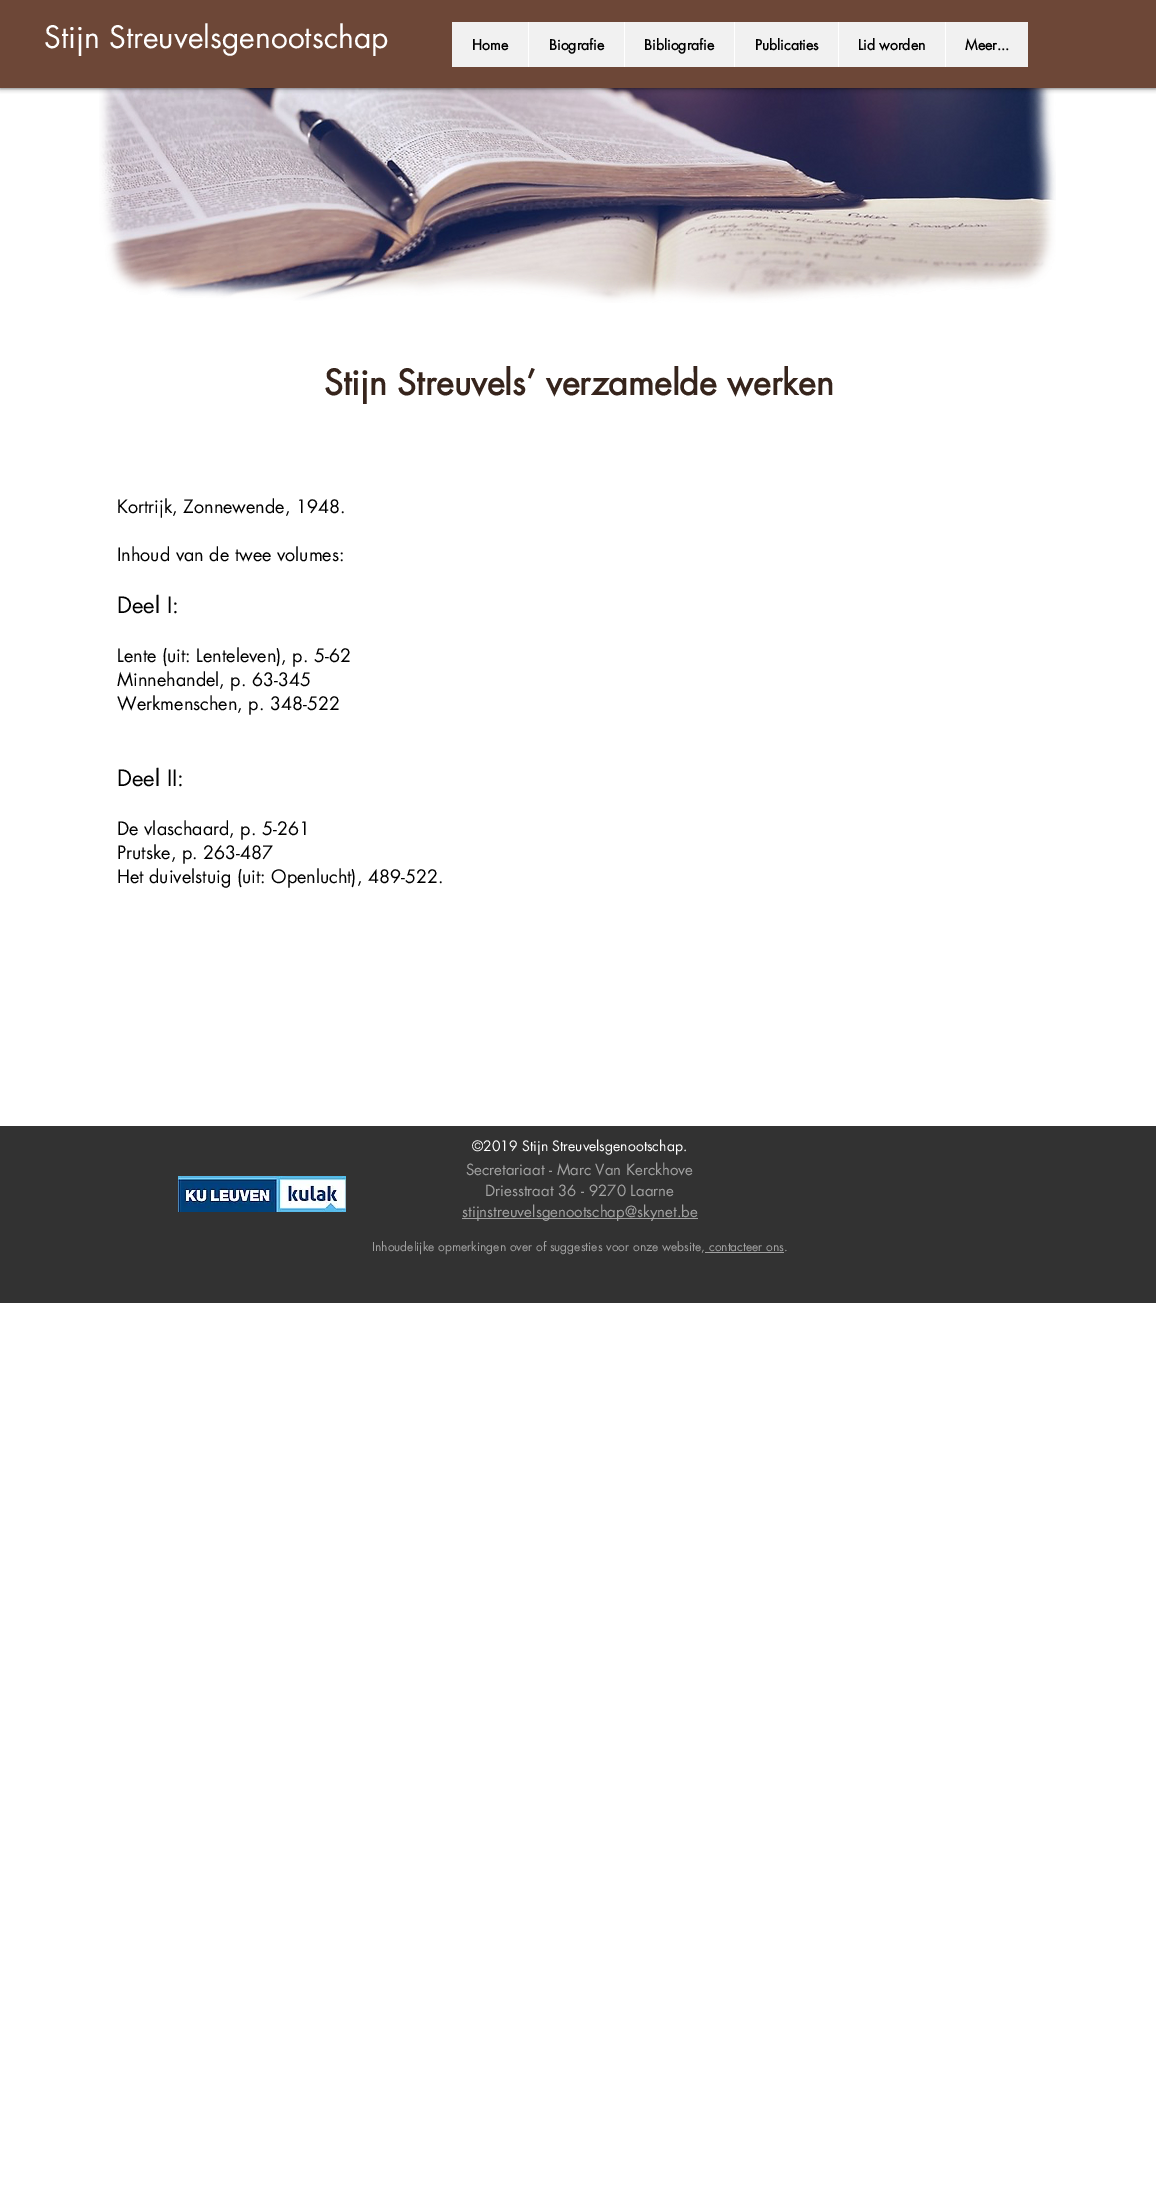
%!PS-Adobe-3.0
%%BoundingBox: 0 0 1156 2202
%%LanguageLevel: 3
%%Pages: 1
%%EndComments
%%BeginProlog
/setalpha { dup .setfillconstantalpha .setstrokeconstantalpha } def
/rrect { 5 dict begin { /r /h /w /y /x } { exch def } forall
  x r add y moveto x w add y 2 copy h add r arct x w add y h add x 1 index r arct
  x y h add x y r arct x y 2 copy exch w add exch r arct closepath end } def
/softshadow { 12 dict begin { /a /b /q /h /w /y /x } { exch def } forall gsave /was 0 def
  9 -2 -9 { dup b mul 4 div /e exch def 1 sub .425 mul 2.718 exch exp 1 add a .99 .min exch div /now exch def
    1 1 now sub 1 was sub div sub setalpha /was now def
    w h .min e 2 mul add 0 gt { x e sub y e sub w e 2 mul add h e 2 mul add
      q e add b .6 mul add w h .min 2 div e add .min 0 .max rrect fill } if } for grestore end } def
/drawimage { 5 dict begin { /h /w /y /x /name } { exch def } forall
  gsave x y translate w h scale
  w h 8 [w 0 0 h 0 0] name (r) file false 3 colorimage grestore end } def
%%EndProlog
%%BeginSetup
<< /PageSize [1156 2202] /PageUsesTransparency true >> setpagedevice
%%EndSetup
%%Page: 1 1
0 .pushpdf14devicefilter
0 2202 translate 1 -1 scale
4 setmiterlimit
1 setgray
0 0 1156 2202 rectfill
(images/1.raw) 99 88 957 215 drawimage
0 setgray
0 0 1156 88 0 2.5 0.7 softshadow
0.427 0.278 0.216 setrgbcolor
0 0 1156 88 rectfill
0.945 setgray
452 22 576 45 rectfill
1 setgray
528 22 1 45 rectfill
624 22 1 45 rectfill
734 22 1 45 rectfill
838 22 1 45 rectfill
945 22 1 45 rectfill
0.196 setgray
0 1126 1156 177 rectfill
(images/2.raw) 178 1176 168 36 drawimage
0.631 setgray
462 1218 236 1 rectfill
705 1252 79 1 rectfill
/futura-Regular [30 0 0 -30 0 0] selectfont
1 setgray
44 48 moveto (Stijn Streuvelsgenootschap) show
/futura-Bold [14 0 0 -14 0 0] selectfont
0 setgray
472 50 moveto (Home) show
549 50 moveto (Biografie) show
644 50 moveto (Bibliografie) show
755 50 moveto (Publicaties) show
858 50 moveto (Lid worden) show
965 50 moveto (Meer...) show
/futura-Bold [34 0 0 -34 0 0] selectfont
0.212 0.141 0.11 setrgbcolor
324 395 moveto (Stijn Streuvels’ verzamelde werken) show
/futura-Regular [18 0 0 -18 0 0] selectfont
0 setgray
117 513 moveto (Kortrijk, Zonnewende, 1948.) show
117 561 moveto (Inhoud van de twee volumes:) show
/futura-Regular [22 0 0 -22 0 0] selectfont
117 613 moveto (Deel I:) show
/futura-Regular [18 0 0 -18 0 0] selectfont
117 662 moveto (Lente \(uit: Lenteleven\), p. 5-62) show
117 686 moveto (Minnehandel, p. 63-345) show
117 710 moveto (Werkmenschen, p. 348-522) show
/futura-Regular [22 0 0 -22 0 0] selectfont
117 786 moveto (Deel II:) show
/futura-Regular [18 0 0 -18 0 0] selectfont
117 835 moveto (De vlaschaard, p. 5-261) show
117 859 moveto (Prutske, p. 263-487) show
117 883 moveto (Het duivelstuig \(uit: Openlucht\), 489-522.) show
/futura-Regular [14 0 0 -14 0 0] selectfont
1 setgray
472 1151 moveto (©2019 Stijn Streuvelsgenootschap.) show
/futura-Regular [15 0 0 -15 0 0] selectfont
0.631 setgray
466 1175 moveto (Secretariaat - Marc Van Kerckhove) show
485 1196 moveto (Driesstraat 36 - 9270 Laarne) show
462 1217 moveto (stijnstreuvelsgenootschap@skynet.be) show
/futura-Regular [12 0 0 -12 0 0] selectfont
372 1251 moveto (Inhoudelijke opmerkingen over of suggesties voor onze website, contacteer ons.) show
.poppdf14devicefilter showpage
%%EOF
